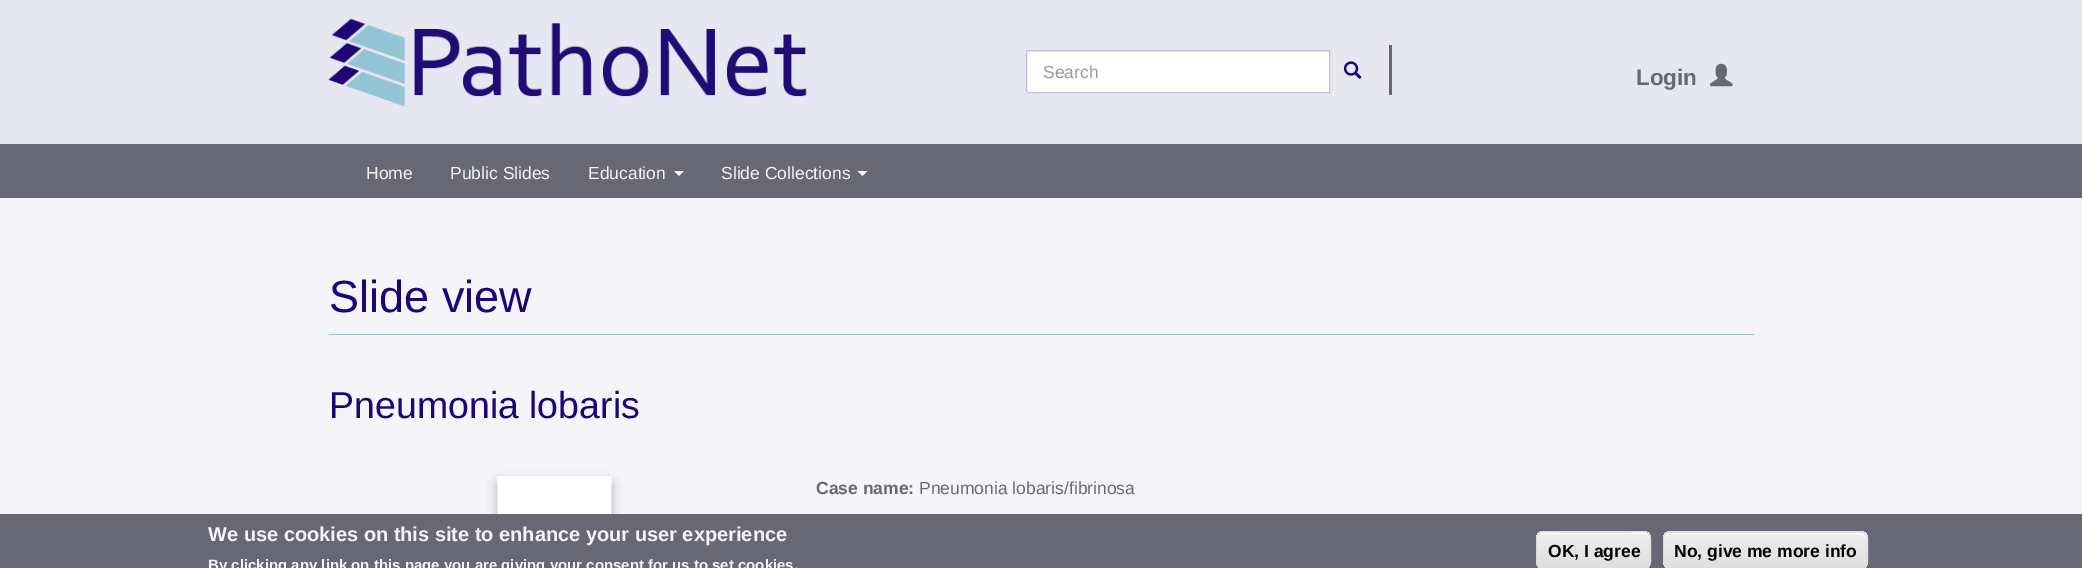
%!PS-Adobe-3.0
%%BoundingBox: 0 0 2082 568
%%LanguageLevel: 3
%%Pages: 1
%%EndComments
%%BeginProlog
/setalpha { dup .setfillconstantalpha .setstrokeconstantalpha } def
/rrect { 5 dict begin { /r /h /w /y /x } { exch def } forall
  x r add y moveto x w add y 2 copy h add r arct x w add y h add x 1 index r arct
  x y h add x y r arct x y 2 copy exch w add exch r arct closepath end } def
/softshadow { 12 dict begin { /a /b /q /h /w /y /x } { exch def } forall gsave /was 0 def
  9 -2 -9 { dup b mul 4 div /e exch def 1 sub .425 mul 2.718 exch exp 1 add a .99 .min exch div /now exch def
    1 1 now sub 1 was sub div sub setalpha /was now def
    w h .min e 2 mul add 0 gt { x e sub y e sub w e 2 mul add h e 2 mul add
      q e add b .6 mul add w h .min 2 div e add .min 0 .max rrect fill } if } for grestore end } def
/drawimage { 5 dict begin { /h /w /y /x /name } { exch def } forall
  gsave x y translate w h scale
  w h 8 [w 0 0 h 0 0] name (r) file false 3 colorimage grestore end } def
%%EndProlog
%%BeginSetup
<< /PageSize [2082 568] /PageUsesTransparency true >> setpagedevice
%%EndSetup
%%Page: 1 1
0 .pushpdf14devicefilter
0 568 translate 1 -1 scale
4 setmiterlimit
0.957 0.957 0.976 setrgbcolor
0 0 2082 568 rectfill
0.906 0.906 0.949 setrgbcolor
0 0 2082 144 rectfill
(images/1.raw) 328 18 479 89 drawimage
1 setgray
newpath 1028.5 50 moveto 1330 50 lineto 1330 93 lineto 1028.5 93 lineto 1027 93 1026 92 1026 90.5 curveto 1026 52.5 lineto 1026 51 1027 50 1028.5 50 curveto closepath fill
0.925 setgray
newpath 1029 52 moveto 1329 52 lineto 1329 51 lineto 1028 51 lineto 1028 53 lineto closepath fill
0.749 0.749 0.831 setrgbcolor
newpath 1028.5 50.5 moveto 1329.5 50.5 lineto 1329.5 92.5 lineto 1028.5 92.5 lineto 1027.5 92.5 1026.5 91.5 1026.5 90.5 curveto 1026.5 52.5 lineto 1026.5 51.5 1027.5 50.5 1028.5 50.5 curveto closepath stroke
(images/2.raw) 1343 61 19 18 drawimage
0.408 0.408 0.424 setrgbcolor
1389 45 3 50 rectfill
(images/3.raw) 1710 63 23 24 drawimage
0.404 0.404 0.463 setrgbcolor
0 144 2082 54 rectfill
0.957 0.957 0.976 setrgbcolor
newpath 674 171 moveto 684 171 lineto 679 176 lineto closepath fill
newpath 857.5 171 moveto 867.5 171 lineto 862.5 176 lineto closepath fill
0.576 0.769 0.835 setrgbcolor
329 334 1425 1 rectfill
0.502 setgray
500 484 109 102 0 6 1 softshadow
(images/4.raw) 497 476 115 38 drawimage
0.404 0.404 0.463 setrgbcolor
0 514 2082 54 rectfill
gsave
1536 531 115 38 8 rrect clip newpath
gsave newpath 1536 531 moveto 1651 531 lineto 1651 533 lineto 1536 533 lineto closepath clip newpath
<< /ShadingType 2 /ColorSpace /DeviceRGB /Coords [1594 498 1594 533] /Extend [true true] /Function << /FunctionType 3 /Domain [0 1] /Functions [<< /FunctionType 2 /Domain [0 1] /C0 [0.929 0.929 0.929] /C1 [0.929 0.929 0.929] /N 1 >> << /FunctionType 2 /Domain [0 1] /C0 [0.929 0.929 0.929] /C1 [0.875 0.875 0.875] /N 1 >>] /Bounds [0.05] /Encode [0 1 0 1] >> >> shfill grestore
gsave newpath 1536 533 moveto 1651 533 lineto 1651 568 lineto 1536 568 lineto closepath clip newpath
<< /ShadingType 2 /ColorSpace /DeviceRGB /Coords [1594 533 1594 568] /Extend [true true] /Function << /FunctionType 3 /Domain [0 1] /Functions [<< /FunctionType 2 /Domain [0 1] /C0 [0.929 0.929 0.929] /C1 [0.929 0.929 0.929] /N 1 >> << /FunctionType 2 /Domain [0 1] /C0 [0.929 0.929 0.929] /C1 [0.875 0.875 0.875] /N 1 >>] /Bounds [0.05] /Encode [0 1 0 1] >> >> shfill grestore
grestore
1 setgray
newpath 1544 534 moveto 1644 534 lineto 1647 534 1650 537 1650 540 curveto 1650 529 1633 533 1627 533 curveto 1561 533 lineto 1555 533 1538 529 1538 540 curveto 1538 537 1540 534 1544 534 curveto closepath fill
0.863 setgray
1536.5 531.5 114 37 7.5 rrect stroke
gsave
1663 531 205 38 8 rrect clip newpath
gsave newpath 1663 531 moveto 1868 531 lineto 1868 533 lineto 1663 533 lineto closepath clip newpath
<< /ShadingType 2 /ColorSpace /DeviceRGB /Coords [1765 498 1765 533] /Extend [true true] /Function << /FunctionType 3 /Domain [0 1] /Functions [<< /FunctionType 2 /Domain [0 1] /C0 [0.929 0.929 0.929] /C1 [0.929 0.929 0.929] /N 1 >> << /FunctionType 2 /Domain [0 1] /C0 [0.929 0.929 0.929] /C1 [0.875 0.875 0.875] /N 1 >>] /Bounds [0.05] /Encode [0 1 0 1] >> >> shfill grestore
gsave newpath 1663 533 moveto 1868 533 lineto 1868 568 lineto 1663 568 lineto closepath clip newpath
<< /ShadingType 2 /ColorSpace /DeviceRGB /Coords [1765 533 1765 568] /Extend [true true] /Function << /FunctionType 3 /Domain [0 1] /Functions [<< /FunctionType 2 /Domain [0 1] /C0 [0.929 0.929 0.929] /C1 [0.929 0.929 0.929] /N 1 >> << /FunctionType 2 /Domain [0 1] /C0 [0.929 0.929 0.929] /C1 [0.875 0.875 0.875] /N 1 >>] /Bounds [0.05] /Encode [0 1 0 1] >> >> shfill grestore
grestore
1 setgray
newpath 1670 534 moveto 1860 534 lineto 1863 534 1866 537 1866 540 curveto 1866 539 lineto 1866 536 1863 533 1860 533 curveto 1670 533 lineto 1667 533 1664 536 1664 539 curveto 1664 540 lineto 1664 537 1667 534 1670 534 curveto closepath fill
0.863 setgray
1663.5 531.5 204 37 7.5 rrect stroke
/LiberationSans-Regular [17.5 0 0 -17.5 0 0] selectfont
0.6 setgray
1043 78 moveto (Search) show
/LiberationSans-Bold [22.5 0 0 -22.5 0 0] selectfont
0.404 0.404 0.463 setrgbcolor
1636 85 moveto (Login) show
/LiberationSans-Regular [17.5 0 0 -17.5 0 0] selectfont
0.957 0.957 0.976 setrgbcolor
366 179 moveto (Home) show
450 179 moveto (Public Slides) show
588 179 moveto (Education) show
721 179 moveto (Slide Collections) show
/LiberationSans-Regular [45 0 0 -45 0 0] selectfont
0.118 0.02 0.463 setrgbcolor
329 312 moveto (Slide view) show
/LiberationSans-Regular [37.5 0 0 -37.5 0 0] selectfont
329 418 moveto (Pneumonia lobaris) show
/LiberationSans-Bold [17.5 0 0 -17.5 0 0] selectfont
0.404 0.404 0.463 setrgbcolor
816 494 moveto (Case name:) show
/LiberationSans-Regular [17.5 0 0 -17.5 0 0] selectfont
919 494 moveto (Pneumonia lobaris/fibrinosa) show
/LiberationSans-Bold [20 0 0 -20 0 0] selectfont
0.957 0.957 0.976 setrgbcolor
208 541 moveto (We use cookies on this site to enhance your user experience) show
/LiberationSans-Bold [15 0 0 -15 0 0] selectfont
208 570 moveto (By clicking any link on this page you are giving your consent for us to set cookies.) show
/LiberationSans-Bold [17.5 0 0 -17.5 0 0] selectfont
0 setgray
1548 557 moveto (OK, I agree) show
1674 557 moveto (No, give me more info) show
.poppdf14devicefilter showpage
%%EOF
